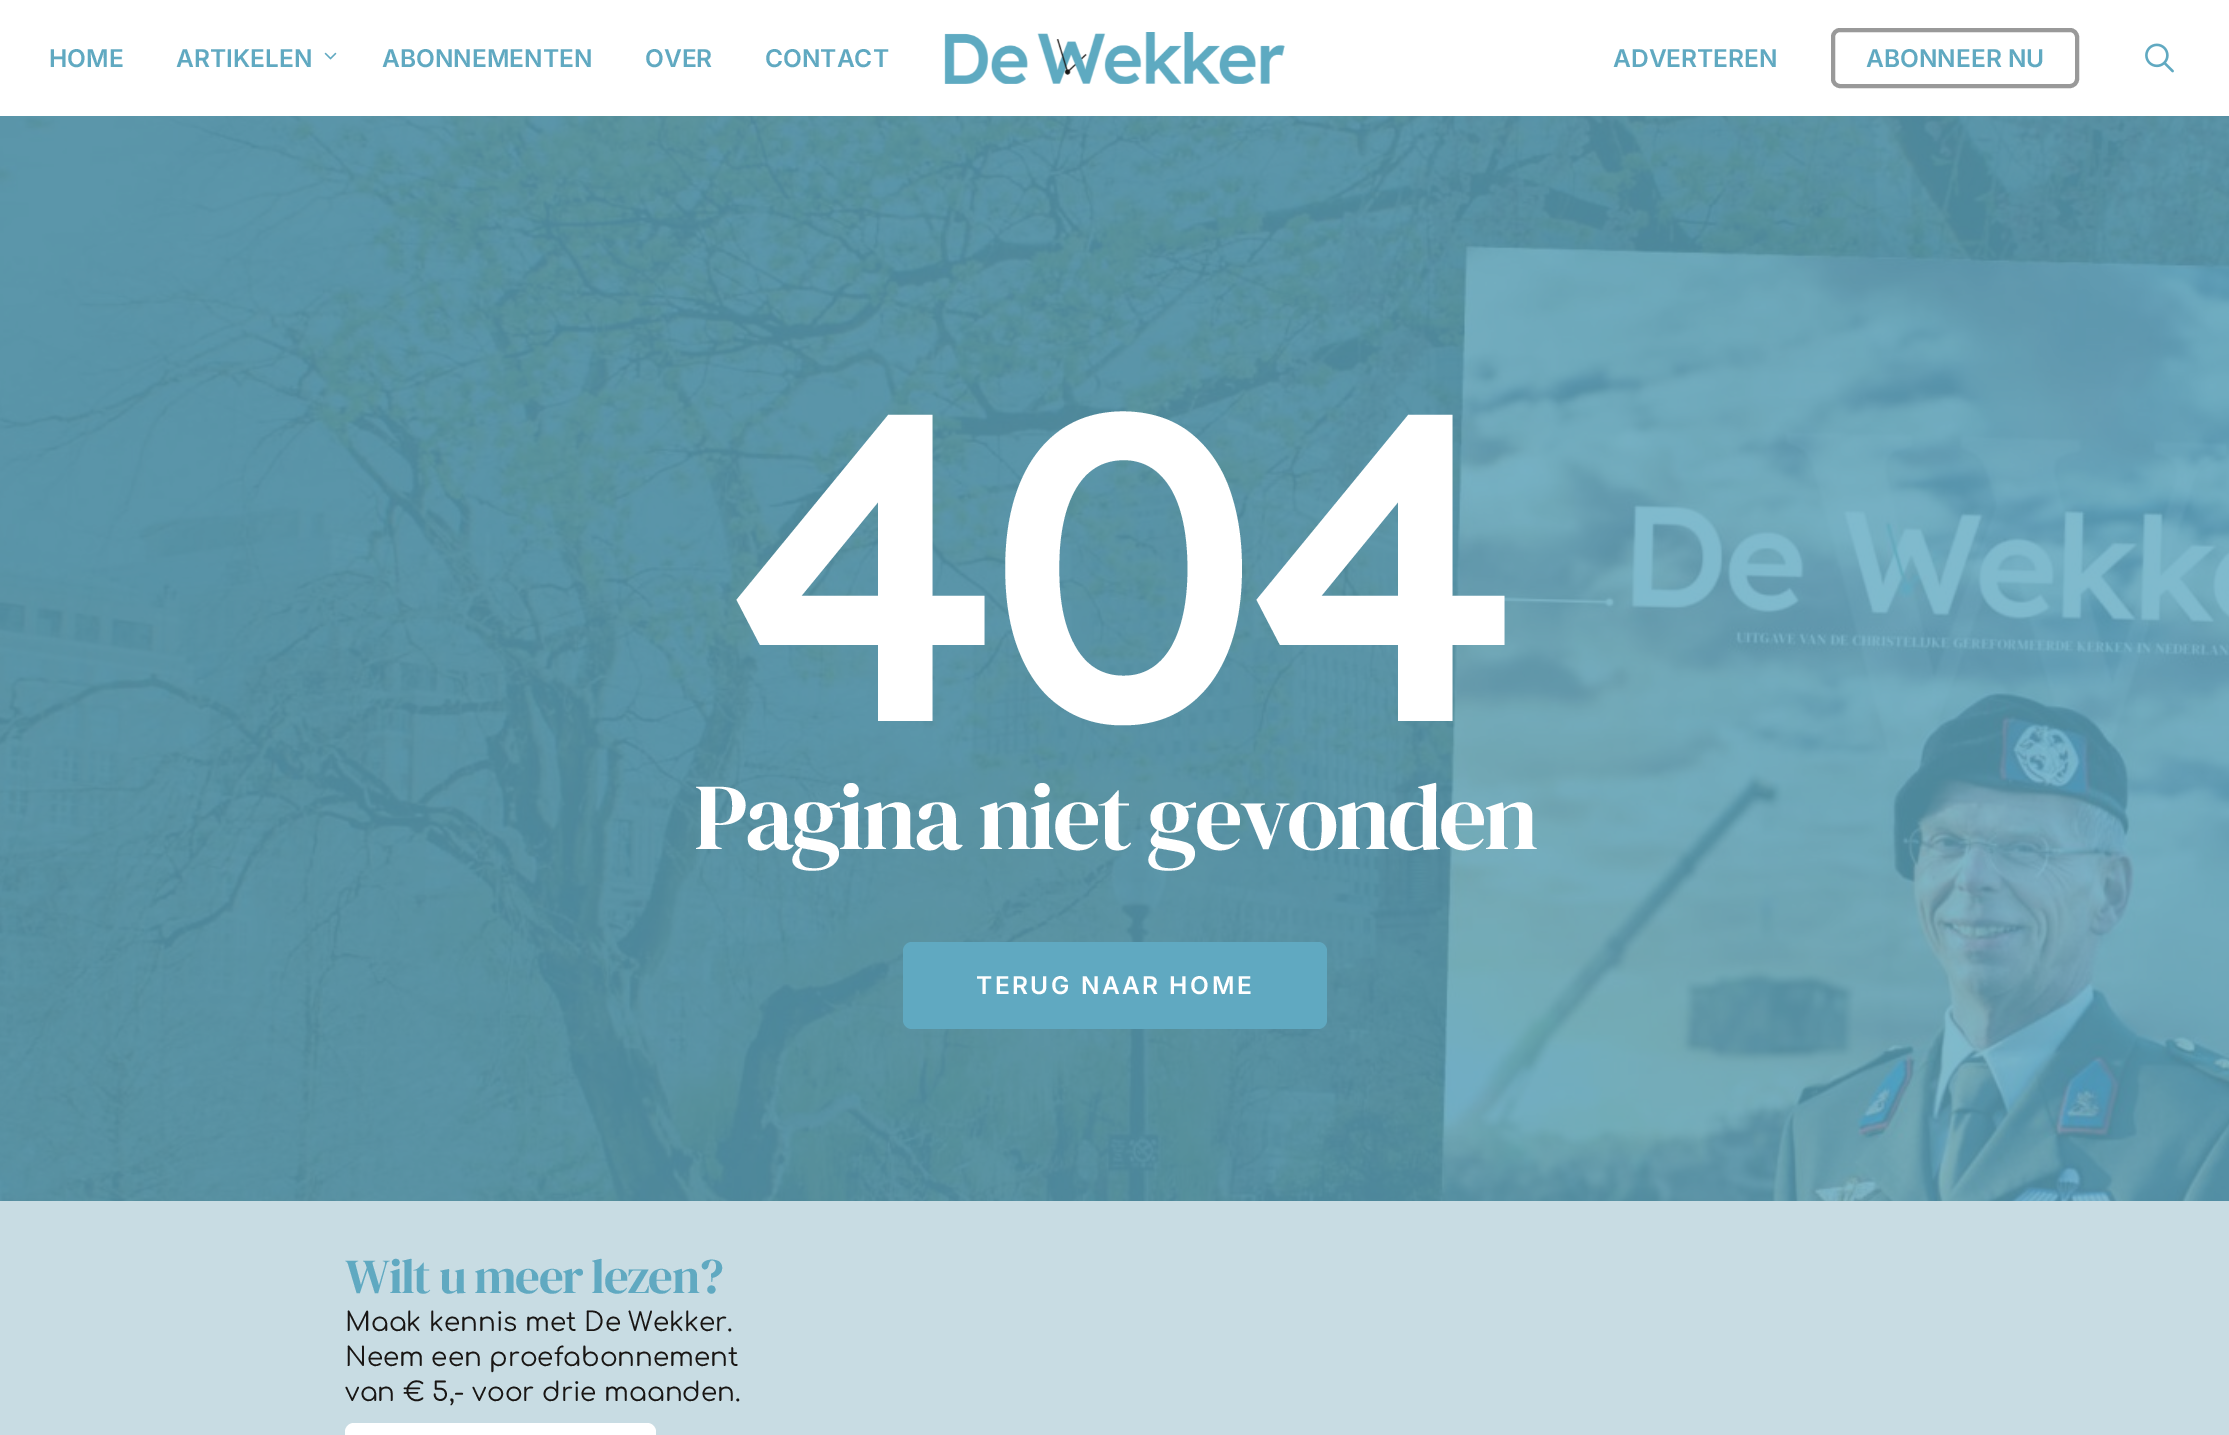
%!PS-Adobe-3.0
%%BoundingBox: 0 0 2229 1435
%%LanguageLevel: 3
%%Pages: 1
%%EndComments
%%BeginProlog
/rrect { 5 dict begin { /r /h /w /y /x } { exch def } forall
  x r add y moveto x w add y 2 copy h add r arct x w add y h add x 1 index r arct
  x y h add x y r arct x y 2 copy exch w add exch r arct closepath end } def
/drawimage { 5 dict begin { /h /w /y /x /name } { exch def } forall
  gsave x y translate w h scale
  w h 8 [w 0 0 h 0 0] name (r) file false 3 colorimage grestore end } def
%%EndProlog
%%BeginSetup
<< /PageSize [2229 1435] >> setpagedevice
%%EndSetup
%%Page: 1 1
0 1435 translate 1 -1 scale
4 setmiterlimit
1 setgray
0 0 2229 1435 rectfill
(images/1.raw) 324 52 13 8 drawimage
(images/2.raw) 944 32 341 52 drawimage
0.6 setgray
4 setlinewidth
1833 30 244 56 7 rrect stroke
(images/3.raw) 2145 43 29 30 drawimage
(images/4.raw) 0 116 2229 1085 drawimage
0.376 0.663 0.757 setrgbcolor
903 942 424 87 9 rrect fill
0.784 0.863 0.89 setrgbcolor
0 1201 2229 234 rectfill
1 setgray
345 1423 311 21 9 rrect fill
/Inter-SemiBold [24.5 0 0 -24.5 0 0] selectfont
0.376 0.663 0.757 setrgbcolor
49 67 moveto (HOME) show
176 67 moveto (ARTIKELEN) show
382 67 moveto (ABONNEMENTEN) show
645 67 moveto (OVER) show
765 67 moveto (CONTACT) show
1613 67 moveto (ADVERTEREN) show
1866 67 moveto (ABONNEER NU) show
/Lexend-Medium [438 0 0 -438 0 0] selectfont
1 setgray
725 721 moveto -17.5 0 (404) ashow
/DMSerifDisplay-Regular [94.5 0 0 -94.5 0 0] selectfont
694 849 moveto -2.8 0 (Pagina niet gevonden) ashow
/Inter-SemiBold [24.5 0 0 -24.5 0 0] selectfont
976 994 moveto 2.5 0 (TERUG NAAR HOME) ashow
/DMSerifDisplay-Regular [49 0 0 -49 0 0] selectfont
0.376 0.663 0.757 setrgbcolor
345 1293 moveto -1.5 0 (Wilt u meer lezen?) ashow
/Comfortaa-Regular [26.25 0 0 -26.25 0 0] selectfont
0.098 0.086 0.078 setrgbcolor
345 1331 moveto (Maak kennis met De Wekker.) show
345 1366 moveto (Neem een proefabonnement) show
345 1401 moveto (van € 5,- voor drie maanden.) show
showpage
%%EOF
